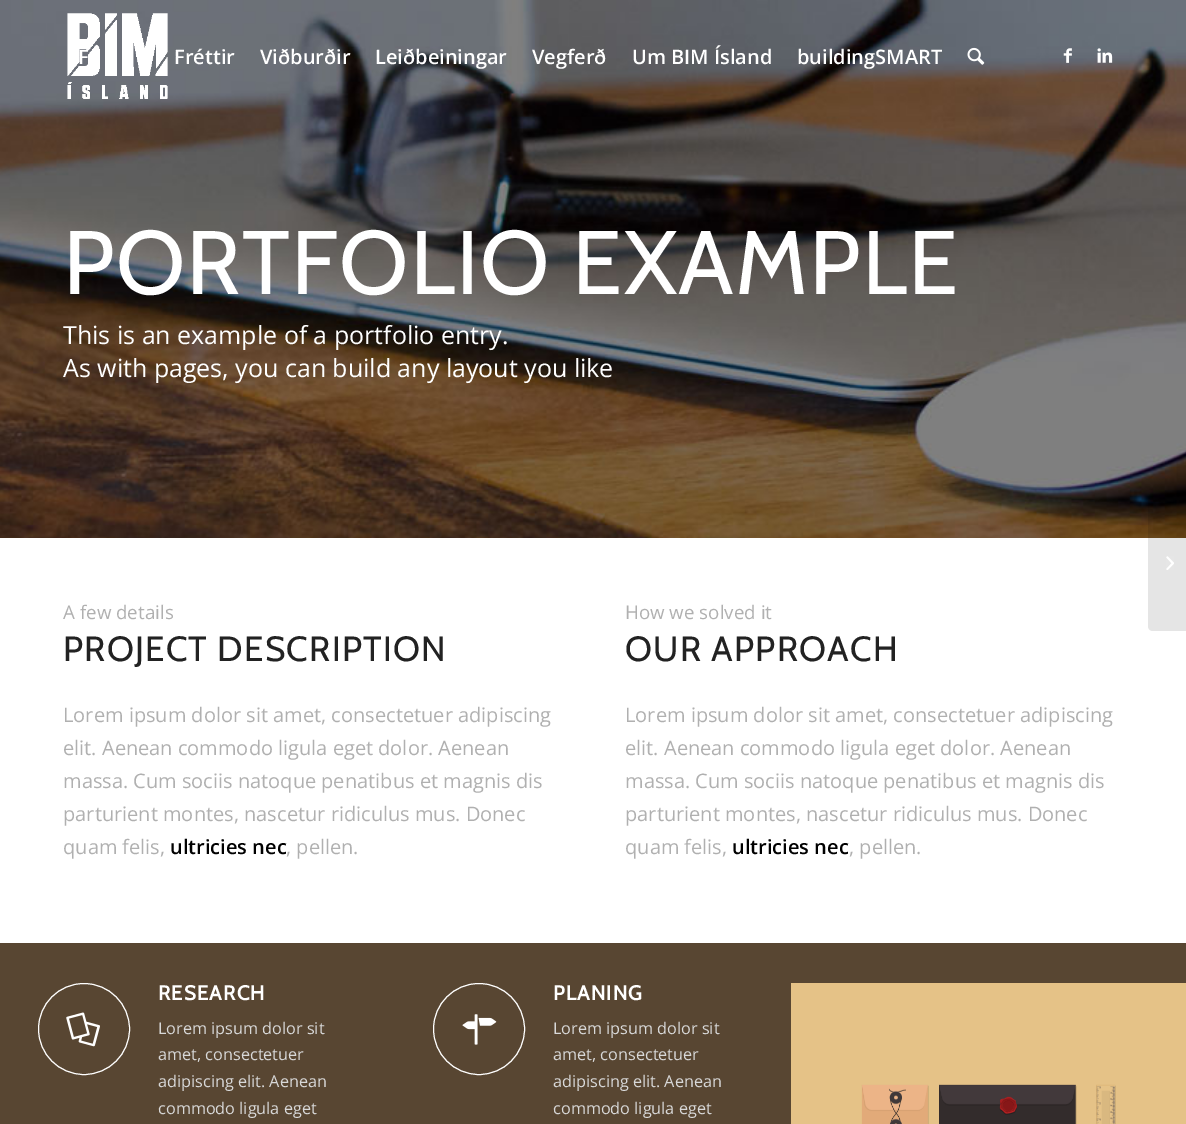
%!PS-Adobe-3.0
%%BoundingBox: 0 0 1186 1124
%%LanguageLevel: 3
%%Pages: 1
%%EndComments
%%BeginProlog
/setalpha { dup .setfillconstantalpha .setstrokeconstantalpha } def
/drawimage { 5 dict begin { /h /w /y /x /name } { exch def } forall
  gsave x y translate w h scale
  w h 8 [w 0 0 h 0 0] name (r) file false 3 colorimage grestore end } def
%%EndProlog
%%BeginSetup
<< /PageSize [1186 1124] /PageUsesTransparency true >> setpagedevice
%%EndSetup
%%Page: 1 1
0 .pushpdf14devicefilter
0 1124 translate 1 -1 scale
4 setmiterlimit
1 setgray
0 0 1186 1124 rectfill
(images/5.raw) 0 0 1186 538 drawimage
(images/1.raw) 67 13 101 86 drawimage
(images/2.raw) 967 47 18 18 drawimage
(images/3.raw) 1063 48 9 15 drawimage
(images/4.raw) 1097 48 16 15 drawimage
0.345 0.275 0.196 setrgbcolor
0 943 791 181 rectfill
1 setgray
newpath 84 1029 45.5 0 360 arc closepath stroke
(images/6.raw) 66 1012 34 35 drawimage
newpath 479 1029 45.5 0 360 arc closepath stroke
(images/7.raw) 462 1014 35 31 drawimage
0.345 0.275 0.196 setrgbcolor
791 943 395 40 rectfill
(images/8.raw) 791 983 395 141 drawimage
0.1 setalpha
0 setgray
newpath 1153 494 moveto 1186 494 lineto 1186 631 lineto 1153 631 lineto 1150 631 1148 629 1148 626 curveto 1148 499 lineto 1148 496 1150 494 1153 494 curveto closepath fill
1 setalpha
(images/9.raw) 1166 556 8 14 drawimage
/OpenSans-SemiBold [20 0 0 -20 0 0] selectfont
1 setgray
78 64 moveto (F) show
174 64 moveto (Fréttir) show
260 64 moveto (Viðburðir) show
375 64 moveto (Leiðbeiningar) show
532 64 moveto (Vegferð) show
632 64 moveto (Um BIM Ísland) show
797 64 moveto (buildingSMART) show
/Cabin-Regular [90 0 0 -90 0 0] selectfont
63 294 moveto 1.25 0 (PORTFOLIO EXAMPLE) ashow
/OpenSans-Regular [25 0 0 -25 0 0] selectfont
63 344 moveto (This is an example of a portfolio entry.) show
63 377 moveto (As with pages, you can build any layout you like) show
/OpenSans-Regular [18.75 0 0 -18.75 0 0] selectfont
0.69 setgray
63 619 moveto (A few details) show
/Cabin-Regular [35 0 0 -35 0 0] selectfont
0.133 setgray
63 661 moveto 1.25 0 (PROJECT DESCRIPTION) ashow
/OpenSans-Regular [20 0 0 -20 0 0] selectfont
0.69 setgray
63 722 moveto (Lorem ipsum dolor sit amet, consectetuer adipiscing) show
63 755 moveto (elit. Aenean commodo ligula eget dolor. Aenean) show
63 788 moveto (massa. Cum sociis natoque penatibus et magnis dis) show
63 821 moveto (parturient montes, nascetur ridiculus mus. Donec) show
63 854 moveto (quam felis,) show
/OpenSans-SemiBold [20 0 0 -20 0 0] selectfont
0 setgray
170 854 moveto (ultricies nec) show
/OpenSans-Regular [20 0 0 -20 0 0] selectfont
0.69 setgray
286 854 moveto (, pellen.) show
/OpenSans-Regular [18.75 0 0 -18.75 0 0] selectfont
625 619 moveto (How we solved it) show
/Cabin-Regular [35 0 0 -35 0 0] selectfont
0.133 setgray
625 661 moveto 1.25 0 (OUR APPROACH) ashow
/OpenSans-Regular [20 0 0 -20 0 0] selectfont
0.69 setgray
625 722 moveto (Lorem ipsum dolor sit amet, consectetuer adipiscing) show
625 755 moveto (elit. Aenean commodo ligula eget dolor. Aenean) show
625 788 moveto (massa. Cum sociis natoque penatibus et magnis dis) show
625 821 moveto (parturient montes, nascetur ridiculus mus. Donec) show
625 854 moveto (quam felis,) show
/OpenSans-SemiBold [20 0 0 -20 0 0] selectfont
0 setgray
732 854 moveto (ultricies nec) show
/OpenSans-Regular [20 0 0 -20 0 0] selectfont
0.69 setgray
849 854 moveto (, pellen.) show
/Cabin-Bold [20.25 0 0 -20.25 0 0] selectfont
1 setgray
158 1000 moveto 1.25 0 (RESEARCH) ashow
/OpenSans-Regular [16.25 0 0 -16.25 0 0] selectfont
0.847 setgray
158 1034 moveto (Lorem ipsum dolor sit) show
158 1060 moveto (amet, consectetuer) show
158 1087 moveto (adipiscing elit. Aenean) show
158 1114 moveto (commodo ligula eget) show
/Cabin-Bold [20.25 0 0 -20.25 0 0] selectfont
1 setgray
553 1000 moveto 1.25 0 (PLANING) ashow
/OpenSans-Regular [16.25 0 0 -16.25 0 0] selectfont
0.847 setgray
553 1034 moveto (Lorem ipsum dolor sit) show
553 1060 moveto (amet, consectetuer) show
553 1087 moveto (adipiscing elit. Aenean) show
553 1114 moveto (commodo ligula eget) show
.poppdf14devicefilter showpage
%%EOF
